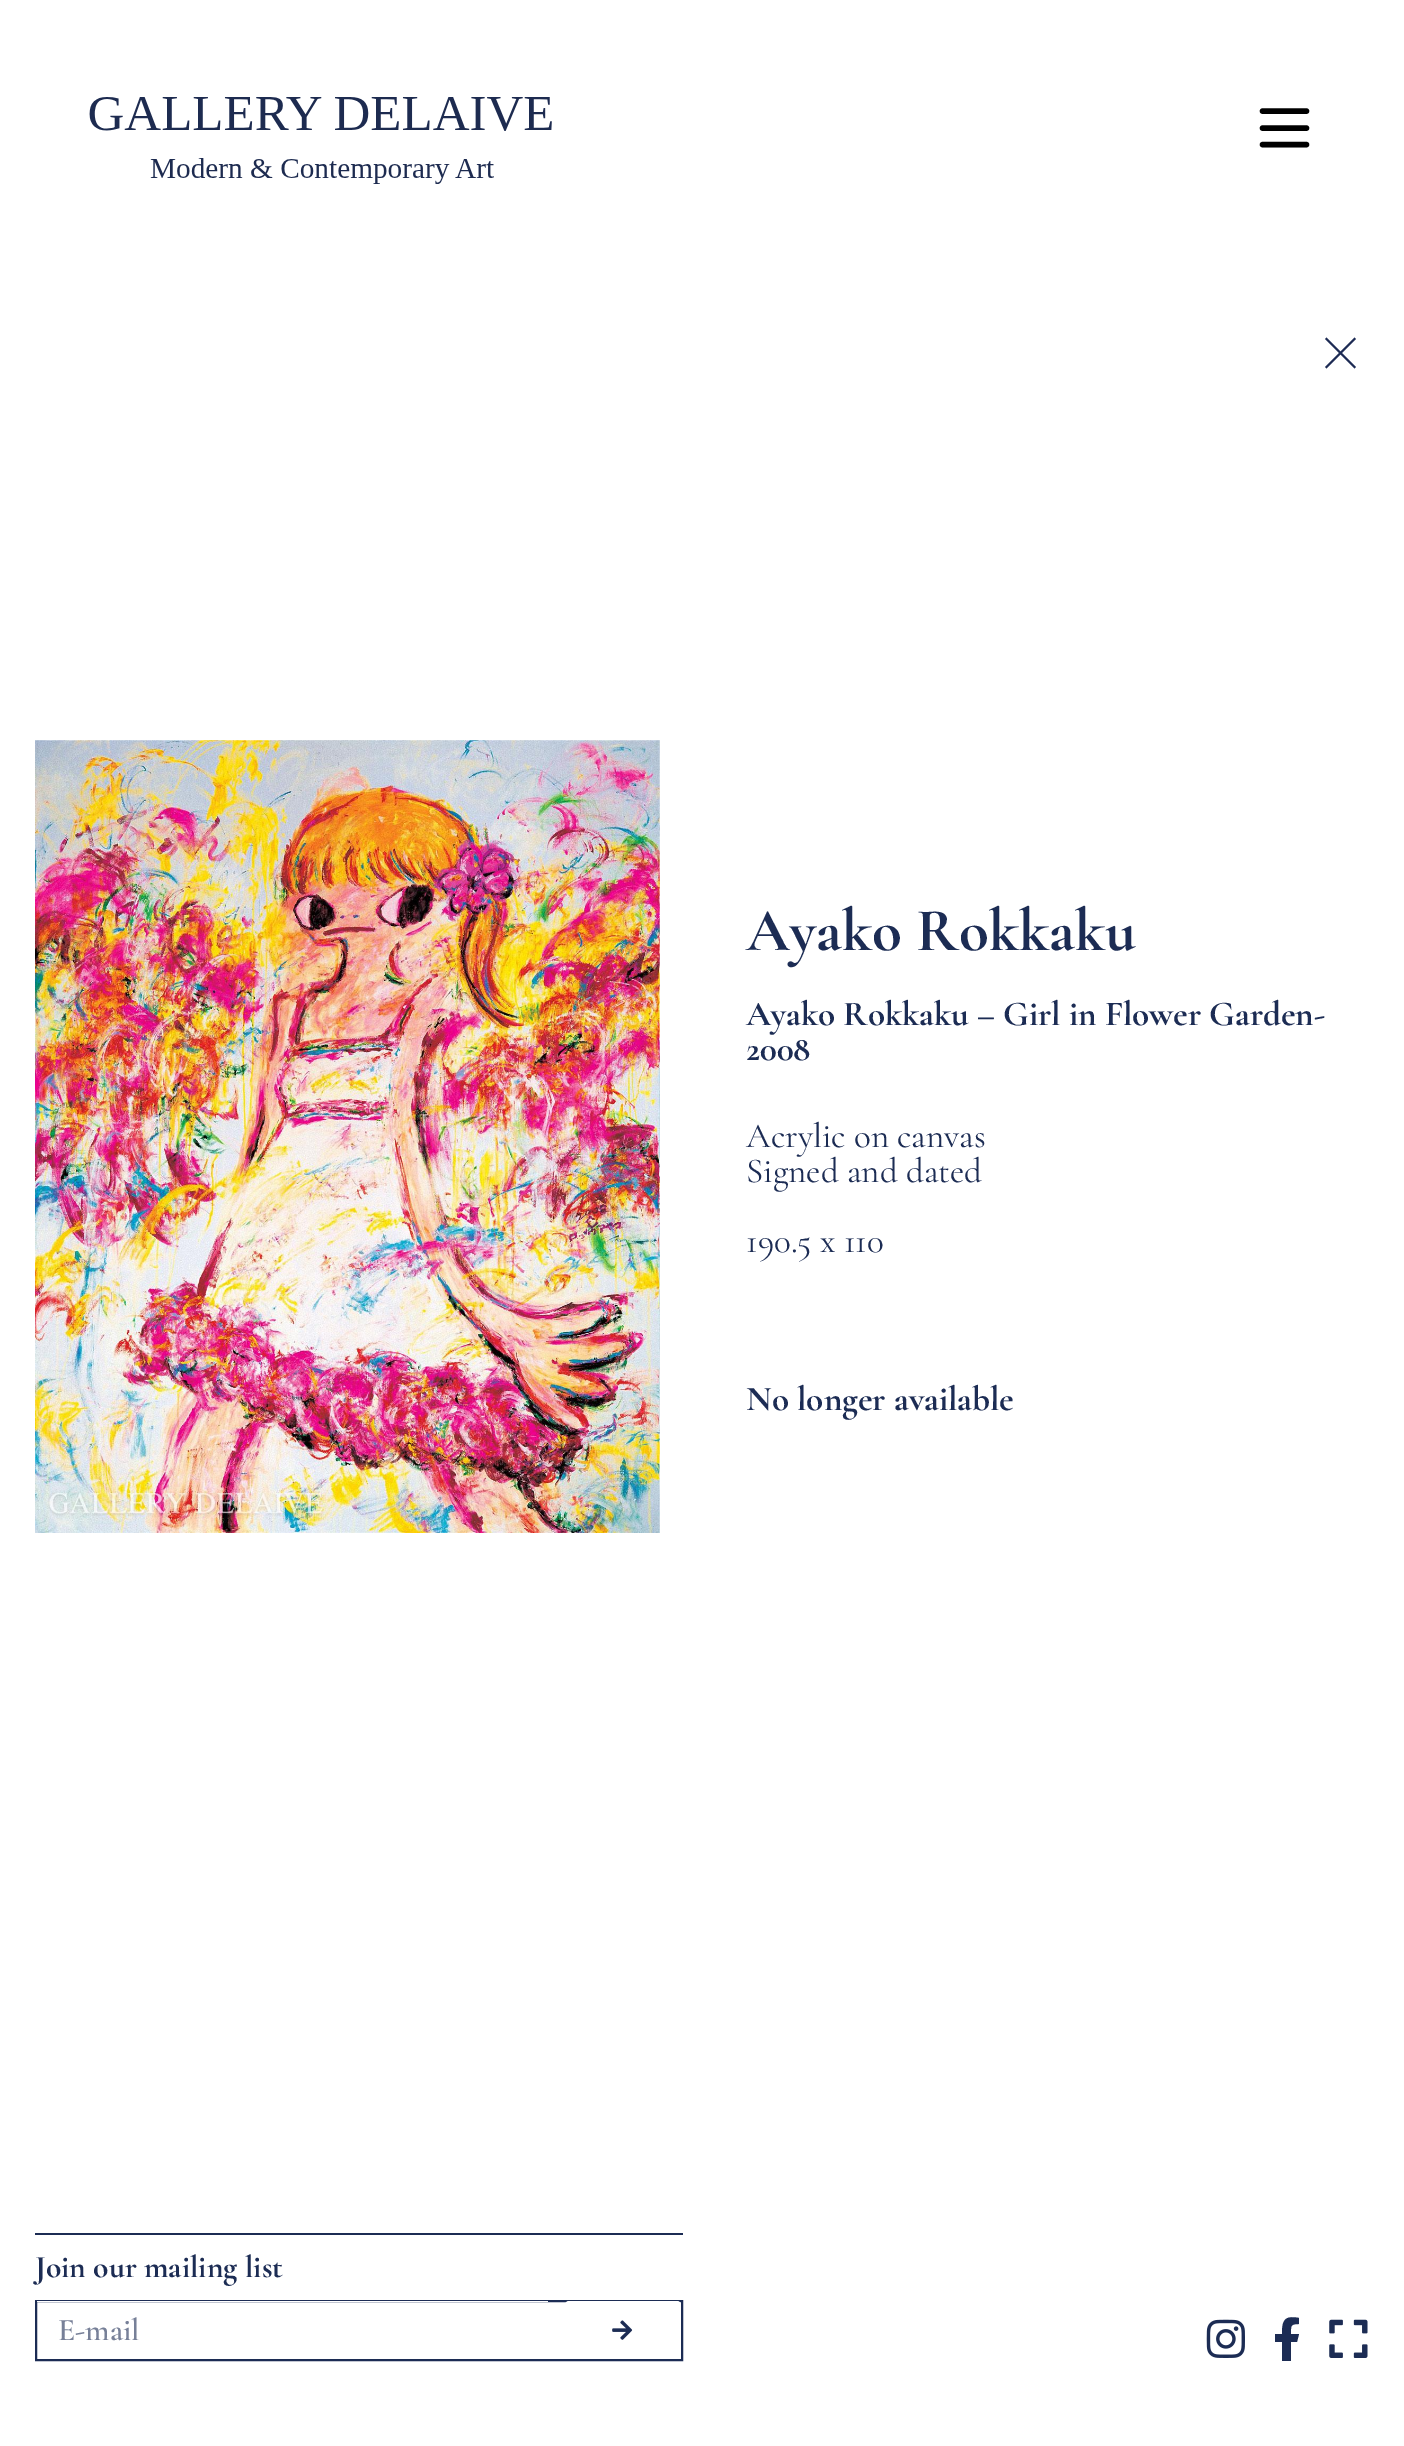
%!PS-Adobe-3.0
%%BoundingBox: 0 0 1404 2446
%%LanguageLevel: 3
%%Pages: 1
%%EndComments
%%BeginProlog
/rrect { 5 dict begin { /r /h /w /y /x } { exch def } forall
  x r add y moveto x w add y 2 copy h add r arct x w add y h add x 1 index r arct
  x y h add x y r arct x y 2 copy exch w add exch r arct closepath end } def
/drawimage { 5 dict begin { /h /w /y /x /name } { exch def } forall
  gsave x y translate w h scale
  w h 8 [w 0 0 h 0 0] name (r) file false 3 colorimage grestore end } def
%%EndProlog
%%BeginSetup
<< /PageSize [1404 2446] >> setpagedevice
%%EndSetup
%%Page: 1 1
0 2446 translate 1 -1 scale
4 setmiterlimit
1 setgray
0 0 1404 2446 rectfill
(images/1.raw) 89 97 463 87 drawimage
0 setgray
5.5 setlinewidth
1 setlinecap
newpath 1262.5 144.5 moveto 1306.5 144.5 lineto 1262.5 128 moveto 1306.5 128 lineto 1262.5 111 moveto 1306.5 111 lineto stroke
(images/2.raw) 35 740 625 793 drawimage
0.114 0.169 0.329 setrgbcolor
newpath 1326.5 337.5 moveto 1356 367 lineto 1354.5 368.5 lineto 1325 339 lineto closepath fill
newpath 1325 367 moveto 1354.5 337.5 lineto 1356 339 lineto 1326.5 368.5 lineto closepath fill
0.11 0.173 0.329 setrgbcolor
35 2233 648 2 rectfill
2 setlinewidth
0 setlinecap
36 2301 646 59 rectstroke
1 setgray
37 2301 511 1 rectfill
565 2301 116 58 4 rrect fill
(images/3.raw) 612 2320 21 20 drawimage
(images/4.raw) 1206 2319 39 39 drawimage
0.11 0.173 0.329 setrgbcolor
newpath 1297 2342 moveto 1299 2334 lineto 1291 2334 lineto 1291 2326 1290 2324 1299 2324 curveto 1299 2318 lineto 1284 2315 1282 2321 1282 2334 curveto 1275 2334 lineto 1275 2342 lineto 1282 2342 lineto 1282 2361 lineto 1291 2361 lineto 1291 2342 lineto closepath fill
(images/5.raw) 1329 2319 39 39 drawimage
/CormorantGaramond-Bold [61.25 0 0 -61.25 0 0] selectfont
746 950 moveto (Ayako Rokkaku) show
/CormorantGaramond-Bold [35 0 0 -35 0 0] selectfont
746 1025 moveto (Ayako Rokkaku – Girl in Flower Garden-) show
746 1060 moveto (2008) show
/CormorantGaramond-Regular [35 0 0 -35 0 0] selectfont
746 1147 moveto (Acrylic on canvas) show
746 1182 moveto (Signed and dated) show
746 1252 moveto (190.5 x 110) show
/CormorantGaramond-Bold [35 0 0 -35 0 0] selectfont
746 1410 moveto (No longer available) show
/CormorantGaramond-Bold [31.5 0 0 -31.5 0 0] selectfont
35 2277 moveto (Join our mailing list) show
/CormorantGaramond-SemiBold [31.5 0 0 -31.5 0 0] selectfont
0.467 0.502 0.596 setrgbcolor
58 2340 moveto (E-mail) show
showpage
%%EOF
